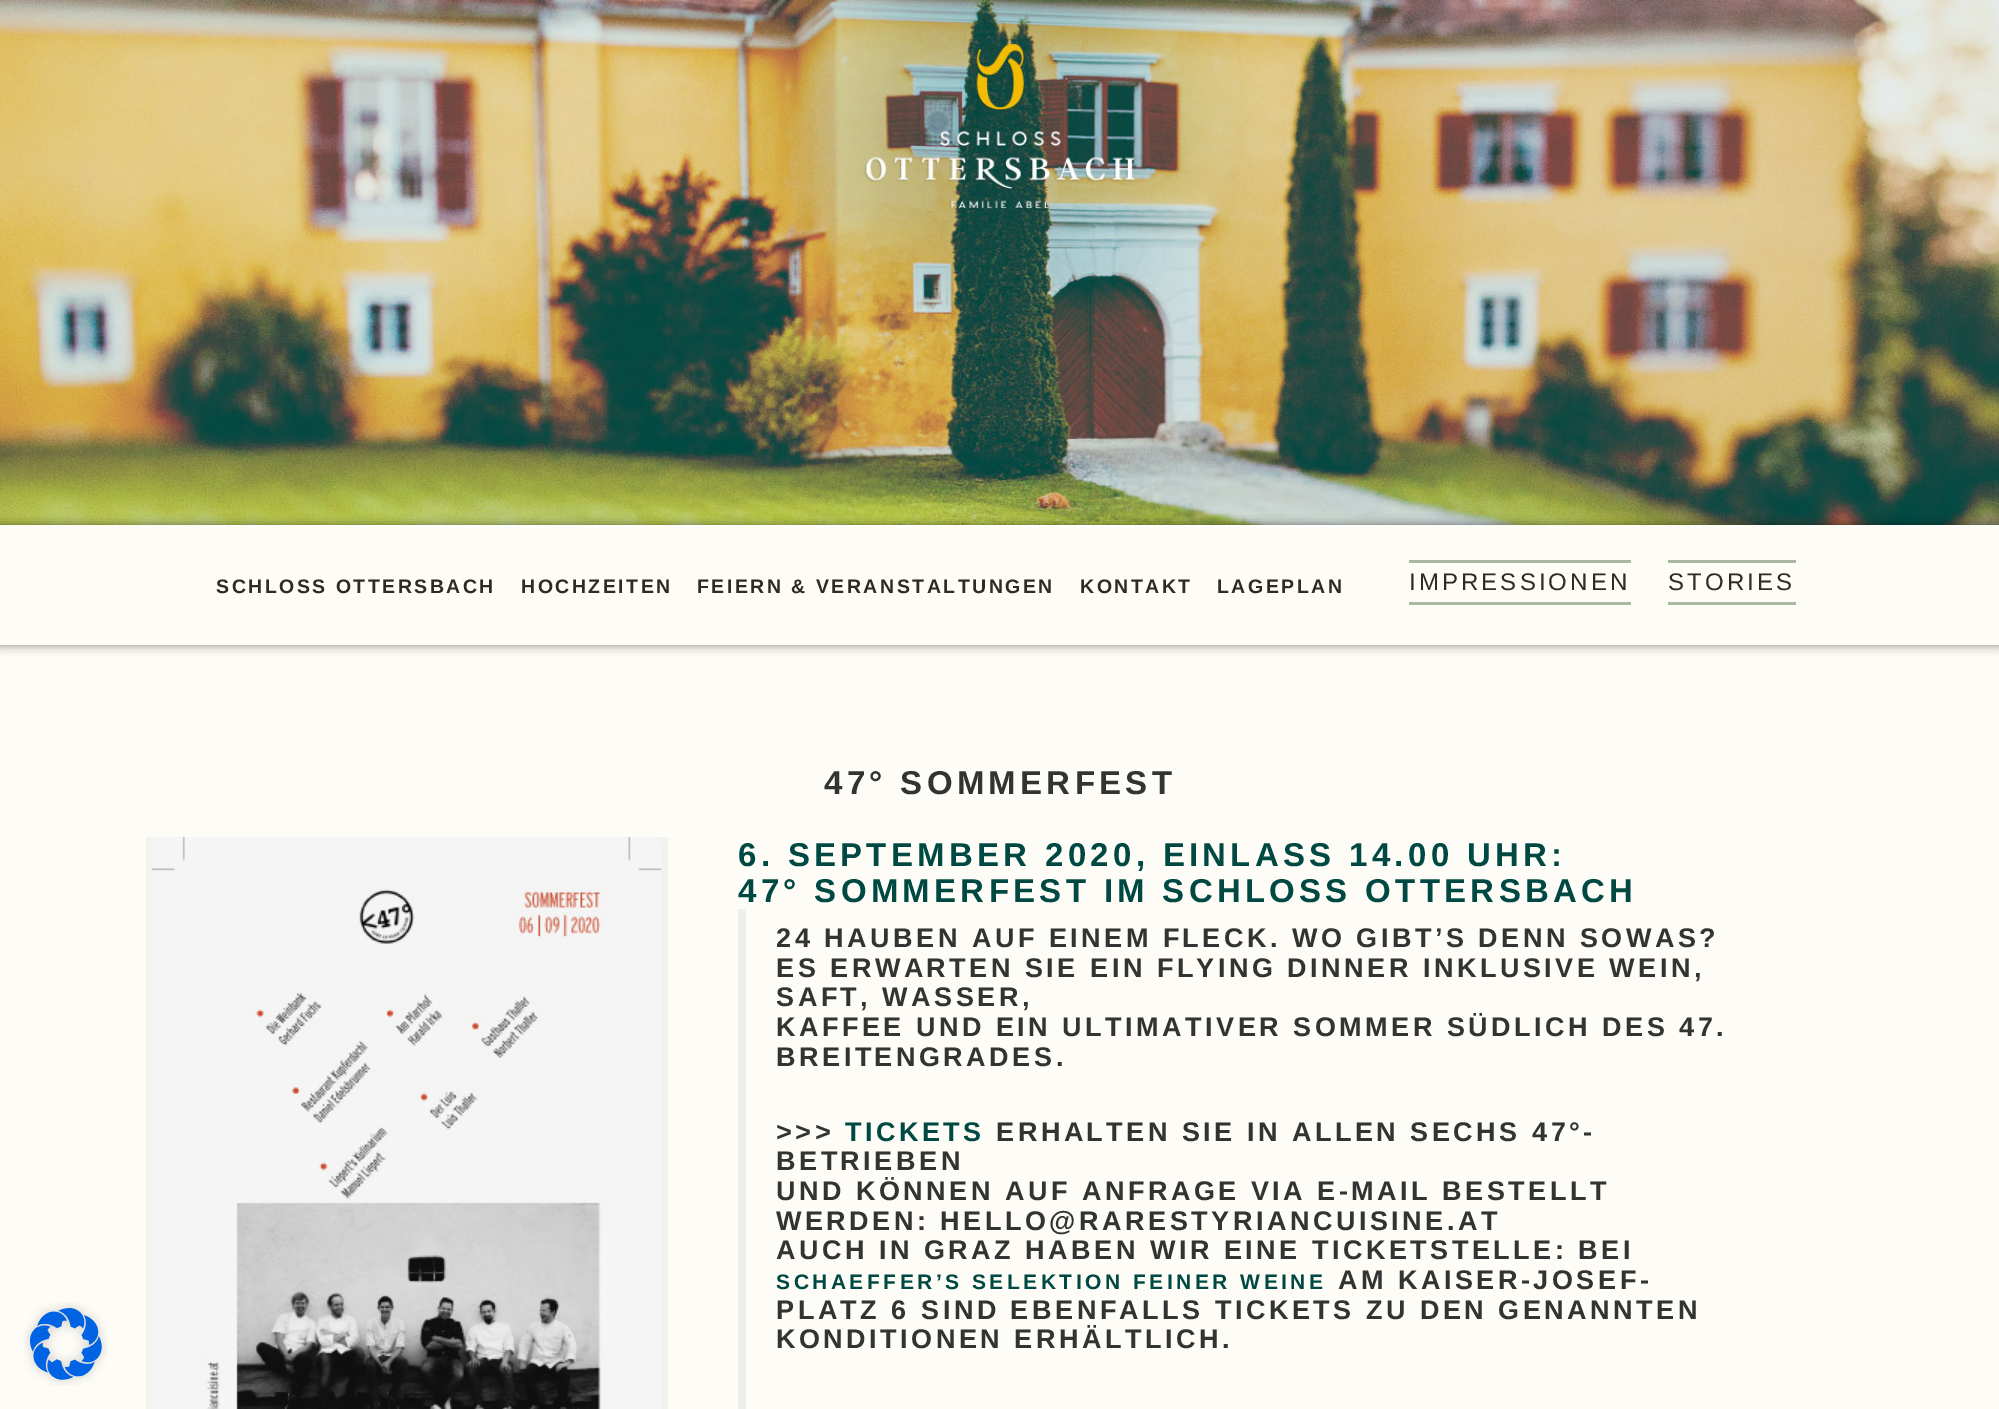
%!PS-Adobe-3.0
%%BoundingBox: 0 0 1999 1409
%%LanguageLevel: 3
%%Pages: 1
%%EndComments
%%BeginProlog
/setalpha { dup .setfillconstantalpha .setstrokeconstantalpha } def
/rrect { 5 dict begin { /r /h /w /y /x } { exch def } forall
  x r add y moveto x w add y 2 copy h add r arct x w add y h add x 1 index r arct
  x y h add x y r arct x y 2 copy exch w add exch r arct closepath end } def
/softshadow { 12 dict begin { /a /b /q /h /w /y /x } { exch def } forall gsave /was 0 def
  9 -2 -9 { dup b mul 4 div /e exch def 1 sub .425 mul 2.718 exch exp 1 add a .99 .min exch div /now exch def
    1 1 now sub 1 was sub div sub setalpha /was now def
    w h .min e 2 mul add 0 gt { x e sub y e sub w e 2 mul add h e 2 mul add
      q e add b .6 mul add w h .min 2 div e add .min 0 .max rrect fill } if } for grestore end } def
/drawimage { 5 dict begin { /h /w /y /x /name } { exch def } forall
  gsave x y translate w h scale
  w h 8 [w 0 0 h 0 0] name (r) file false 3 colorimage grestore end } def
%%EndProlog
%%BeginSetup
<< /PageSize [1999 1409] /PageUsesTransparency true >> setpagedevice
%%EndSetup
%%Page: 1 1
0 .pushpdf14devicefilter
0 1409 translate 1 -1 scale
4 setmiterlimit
0.996 0.988 0.965 setrgbcolor
0 0 1999 1409 rectfill
(images/1.raw) 0 0 1999 525 drawimage
gsave
newpath 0 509 moveto 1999 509 lineto 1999 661 lineto 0 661 lineto closepath 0 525 moveto 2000 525 lineto 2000 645 lineto 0 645 lineto closepath eoclip newpath
0 setgray
0 525 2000 120 0 5 0.5 softshadow
grestore
1 setgray
204 525 1152 2 rectfill
0.659 0.718 0.624 setrgbcolor
1409 560 222 3 rectfill
1409 602 222 3 rectfill
1668 560 128 3 rectfill
1668 602 128 3 rectfill
(images/2.raw) 24 1302 84 84 drawimage
(images/3.raw) 151 837 511 572 drawimage
0.05 setalpha
0.2 setgray
146 837 522 572 rectfill
1 setalpha
0.933 setgray
738 909 8 500 rectfill
/LiberationSans-Bold [19.5 0 0 -19.5 0 0] selectfont
0.18 0.165 0.145 setrgbcolor
216 593 moveto 2.5 0 (SCHLOSS OTTERSBACH) ashow
521 593 moveto 2.5 0 (HOCHZEITEN) ashow
697 593 moveto 2.5 0 (FEIERN & VERANSTALTUNGEN) ashow
1080 593 moveto 2.5 0 (KONTAKT) ashow
1217 593 moveto 2.5 0 (LAGEPLAN) ashow
/LiberationSans-Regular [24 0 0 -24 0 0] selectfont
1409 590 moveto 3.1 0 (IMPRESSIONEN) ashow
1668 590 moveto 3.1 0 (STORIES) ashow
/LiberationSans-Bold [33 0 0 -33 0 0] selectfont
0.2 setgray
824 794 moveto 4.3 0 (47° SOMMERFEST) ashow
0 0.286 0.259 setrgbcolor
738 866 moveto 4.3 0 (6. SEPTEMBER 2020, EINLASS 14.00 UHR:) ashow
738 902 moveto 4.3 0 (47° SOMMERFEST IM SCHLOSS OTTERSBACH) ashow
/LiberationSans-Bold [27 0 0 -27 0 0] selectfont
0.2 setgray
776 947 moveto 3.5 0 (24 HAUBEN AUF EINEM FLECK. WO GIBT’S DENN SOWAS?) ashow
776 977 moveto 3.5 0 (ES ERWARTEN SIE EIN FLYING DINNER INKLUSIVE WEIN,) ashow
776 1006 moveto 3.5 0 (SAFT, WASSER,) ashow
776 1036 moveto 3.5 0 (KAFFEE UND EIN ULTIMATIVER SOMMER SÜDLICH DES 47.) ashow
776 1066 moveto 3.5 0 (BREITENGRADES.) ashow
776 1141 moveto 3.5 0 (>>>) ashow
0 0.286 0.259 setrgbcolor
845 1141 moveto 3.5 0 (TICKETS) ashow
0.2 setgray
996 1141 moveto 3.5 0 (ERHALTEN SIE IN ALLEN SECHS 47°-) ashow
776 1170 moveto 3.5 0 (BETRIEBEN) ashow
776 1200 moveto 3.5 0 (UND KÖNNEN AUF ANFRAGE VIA E-MAIL BESTELLT) ashow
776 1230 moveto 3.5 0 (WERDEN: HELLO@RARESTYRIANCUISINE.AT) ashow
776 1259 moveto 3.5 0 (AUCH IN GRAZ HABEN WIR EINE TICKETSTELLE: BEI) ashow
/LiberationSans-Bold [21 0 0 -21 0 0] selectfont
0 0.286 0.259 setrgbcolor
776 1289 moveto 3.5 0 (SCHAEFFER’S SELEKTION FEINER WEINE) ashow
/LiberationSans-Bold [27 0 0 -27 0 0] selectfont
0.2 setgray
1338 1289 moveto 3.5 0 (AM KAISER-JOSEF-) ashow
776 1319 moveto 3.5 0 (PLATZ 6 SIND EBENFALLS TICKETS ZU DEN GENANNTEN) ashow
776 1348 moveto 3.5 0 (KONDITIONEN ERHÄLTLICH.) ashow
.poppdf14devicefilter showpage
%%EOF
